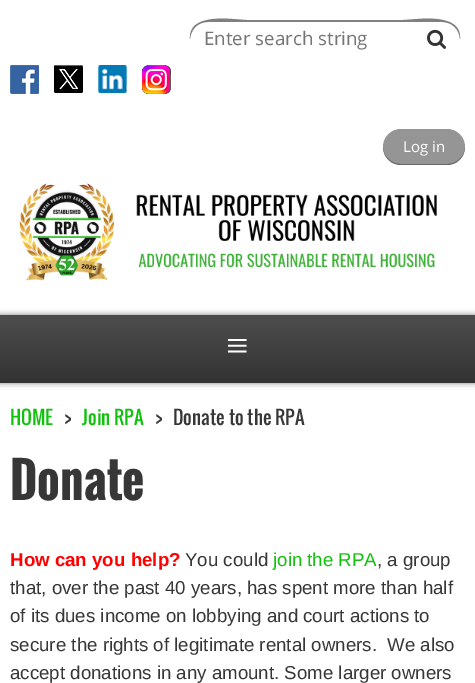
%!PS-Adobe-3.0
%%BoundingBox: 0 0 475 683
%%LanguageLevel: 3
%%Pages: 1
%%EndComments
%%BeginProlog
/setalpha { dup .setfillconstantalpha .setstrokeconstantalpha } def
/rrect { 5 dict begin { /r /h /w /y /x } { exch def } forall
  x r add y moveto x w add y 2 copy h add r arct x w add y h add x 1 index r arct
  x y h add x y r arct x y 2 copy exch w add exch r arct closepath end } def
/softshadow { 12 dict begin { /a /b /q /h /w /y /x } { exch def } forall gsave /was 0 def
  9 -2 -9 { dup b mul 4 div /e exch def 1 sub .425 mul 2.718 exch exp 1 add a .99 .min exch div /now exch def
    1 1 now sub 1 was sub div sub setalpha /was now def
    w h .min e 2 mul add 0 gt { x e sub y e sub w e 2 mul add h e 2 mul add
      q e add b .6 mul add w h .min 2 div e add .min 0 .max rrect fill } if } for grestore end } def
/drawimage { 5 dict begin { /h /w /y /x /name } { exch def } forall
  gsave x y translate w h scale
  w h 8 [w 0 0 h 0 0] name (r) file false 3 colorimage grestore end } def
%%EndProlog
%%BeginSetup
<< /PageSize [475 683] /PageUsesTransparency true >> setpagedevice
%%EndSetup
%%Page: 1 1
0 .pushpdf14devicefilter
0 683 translate 1 -1 scale
4 setmiterlimit
1 setgray
0 0 475 683 rectfill
0.502 setgray
newpath 208 22 moveto 442 22 lineto 452 22 459 29 460 39 curveto 462 11 414 20 403 20 curveto 247 20 lineto 236 20 188 11 190 39 curveto 191 29 198 22 208 22 curveto closepath fill
(images/1.raw) 427 29 20 20 drawimage
(images/2.raw) 10 65 29 29 drawimage
(images/3.raw) 54 65 29 28 drawimage
(images/4.raw) 98 65 29 28 drawimage
(images/5.raw) 142 65 29 29 drawimage
0.584 setgray
383 129 82 36 18 rrect fill
0.3 setalpha
0 setgray
newpath 383 147 moveto 383 157 391 165 401 165 curveto 447 165 lineto 457 165 465 157 465 147 curveto 465 156 457 164 447 164 curveto 401 164 lineto 391 164 383 156 383 147 curveto closepath fill
1 setalpha
(images/6.raw) 19 183 418 98 drawimage
0 315 475 68 0 3 0.5 softshadow
gsave newpath 0 315 moveto 475 315 lineto 475 383 lineto 0 383 lineto closepath clip newpath
<< /ShadingType 2 /ColorSpace /DeviceRGB /Coords [238 315 238 383] /Extend [true true] /Function << /FunctionType 2 /Domain [0 1] /C0 [0.31 0.306 0.306] /C1 [0.2 0.2 0.2] /N 1 >> >> shfill grestore
/OpenSans-Regular [18.7 0 0 -18.7 0 0] selectfont
0.459 setgray
204 45 moveto (Enter search string) show
/OpenSans-Regular [15 0 0 -15 0 0] selectfont
1 setgray
403 152 moveto (Log in) show
/LiberationSerif-Regular [40 0 0 -40 0 0] selectfont
226 359 moveto (≡) show
/Oswald-Regular [18.7 0 0 -18.7 0 0] selectfont
0.067 0.757 0.055 setrgbcolor
10 425 moveto (HOME) show
0.216 setgray
64 425 moveto (>) show
0.067 0.757 0.055 setrgbcolor
82 425 moveto (Join RPA) show
0.216 setgray
155 425 moveto (>) show
173 425 moveto (Donate to the RPA) show
/Oswald-Bold [48 0 0 -48 0 0] selectfont
10 500 moveto (Donate) show
/LiberationSans-Bold [18.7 0 0 -18.7 0 0] selectfont
1 0 0 setrgbcolor
10 566 moveto (How can you help?) show
/LiberationSans-Regular [18.7 0 0 -18.7 0 0] selectfont
0.216 setgray
185 566 moveto (You could) show
0.067 0.757 0.055 setrgbcolor
273 566 moveto (join the RPA) show
0.216 setgray
377 566 moveto (, a group) show
10 594 moveto (that, over the past 40 years, has spent more than half) show
10 622 moveto (of its dues income on lobbying and court actions to) show
10 651 moveto (secure the rights of legitimate rental owners.  We also) show
10 679 moveto (accept donations in any amount. Some larger owners) show
.poppdf14devicefilter showpage
%%EOF
